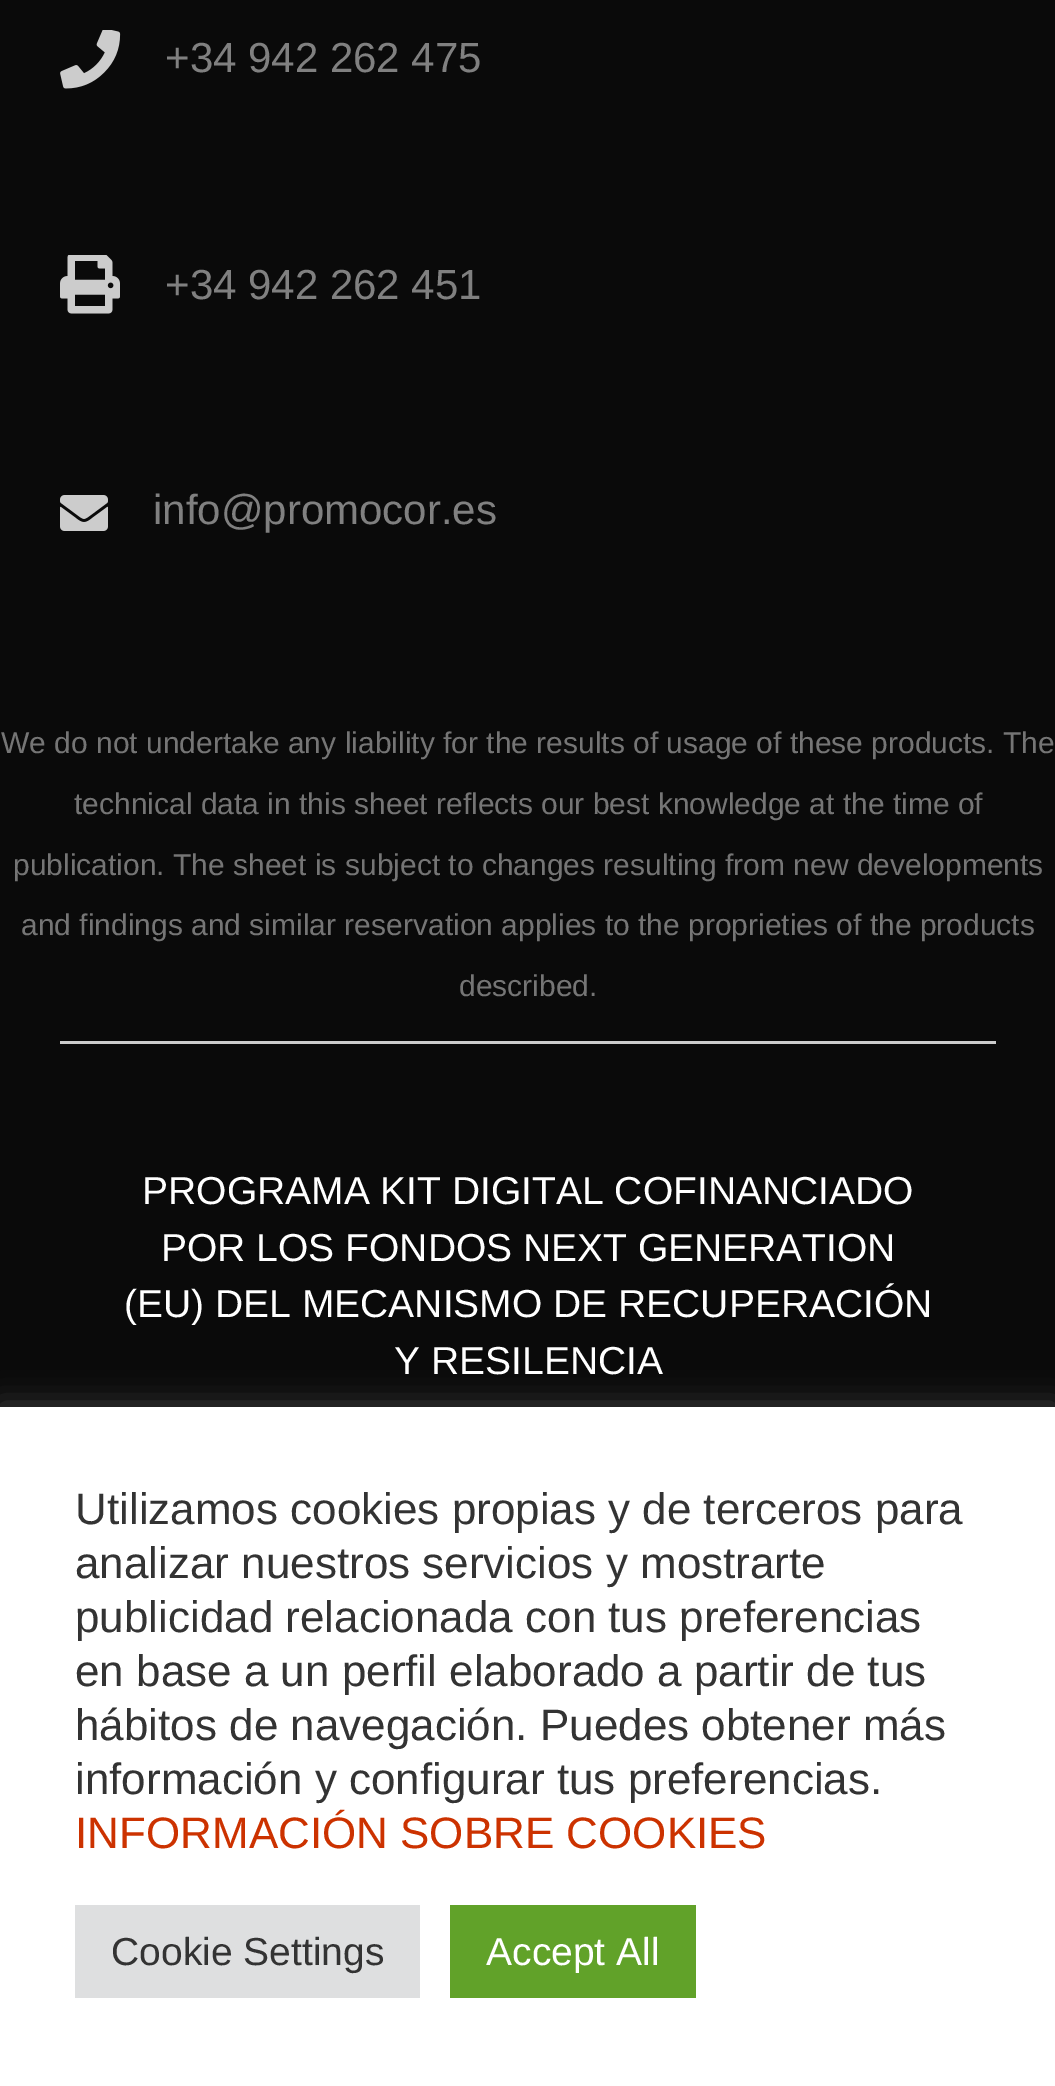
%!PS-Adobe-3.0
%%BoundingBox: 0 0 1055 2086
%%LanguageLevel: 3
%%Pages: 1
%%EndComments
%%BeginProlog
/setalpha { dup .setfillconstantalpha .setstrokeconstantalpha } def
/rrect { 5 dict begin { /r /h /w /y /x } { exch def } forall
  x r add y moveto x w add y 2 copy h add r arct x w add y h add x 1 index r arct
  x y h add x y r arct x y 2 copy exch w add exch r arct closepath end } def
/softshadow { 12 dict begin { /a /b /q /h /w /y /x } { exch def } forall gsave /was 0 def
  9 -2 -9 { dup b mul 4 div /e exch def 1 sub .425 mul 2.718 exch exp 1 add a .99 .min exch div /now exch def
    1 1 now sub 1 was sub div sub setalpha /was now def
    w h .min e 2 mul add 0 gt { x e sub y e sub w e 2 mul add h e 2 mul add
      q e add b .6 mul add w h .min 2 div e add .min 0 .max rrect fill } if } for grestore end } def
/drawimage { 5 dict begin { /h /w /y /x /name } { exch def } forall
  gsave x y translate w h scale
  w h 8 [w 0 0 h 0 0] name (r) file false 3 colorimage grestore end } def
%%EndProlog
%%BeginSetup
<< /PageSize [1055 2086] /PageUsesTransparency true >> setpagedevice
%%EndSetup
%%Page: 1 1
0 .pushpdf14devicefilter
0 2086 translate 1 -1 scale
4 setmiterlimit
0.039 setgray
0 0 1055 2086 rectfill
(images/1.raw) 60 30 61 59 drawimage
(images/2.raw) 60 255 60 59 drawimage
(images/3.raw) 60 495 48 36 drawimage
0.8 setgray
60 1041 936 3 rectfill
0.675 0.671 0.671 setrgbcolor
0 1404 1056 681 0 15 0.3 softshadow
1 setgray
0 1407 1055 679 rectfill
0.871 0.875 0.878 setrgbcolor
75 1905 345 93 rectfill
0.38 0.635 0.161 setrgbcolor
450 1905 246 93 rectfill
/LiberationSans-Regular [42 0 0 -42 0 0] selectfont
0.502 setgray
165 72 moveto (+34 942 262 475) show
165 299 moveto (+34 942 262 451) show
153 524 moveto (info@promocor.es) show
/LiberationSans-Regular [30 0 0 -30 0 0] selectfont
0.459 setgray
1 753 moveto (We do not undertake any liability for the results of usage of these products. The) show
74 814 moveto (technical data in this sheet reflects our best knowledge at the time of) show
13 875 moveto (publication. The sheet is subject to changes resulting from new developments) show
21 935 moveto (and findings and similar reservation applies to the proprieties of the products) show
459 996 moveto (described.) show
/LiberationSans-Regular [39 0 0 -39 0 0] selectfont
1 setgray
142 1204 moveto (PROGRAMA KIT DIGITAL COFINANCIADO) show
161 1261 moveto (POR LOS FONDOS NEXT GENERATION) show
124 1317 moveto (\(EU\) DEL MECANISMO DE RECUPERACIÓN) show
394 1374 moveto (Y RESILENCIA) show
/LiberationSans-Regular [44 0 0 -44 0 0] selectfont
0.2 setgray
75 1524 moveto (Utilizamos cookies propias y de terceros para) show
75 1578 moveto (analizar nuestros servicios y mostrarte) show
75 1632 moveto (publicidad relacionada con tus preferencias) show
75 1686 moveto (en base a un perfil elaborado a partir de tus) show
75 1740 moveto (hábitos de navegación. Puedes obtener más) show
75 1794 moveto (información y configurar tus preferencias.) show
0.8 0.196 0 setrgbcolor
75 1848 moveto (INFORMACIÓN SOBRE COOKIES) show
/LiberationSans-Regular [39 0 0 -39 0 0] selectfont
0.2 setgray
111 1965 moveto (Cookie Settings) show
1 setgray
486 1965 moveto (Accept All) show
.poppdf14devicefilter showpage
%%EOF
